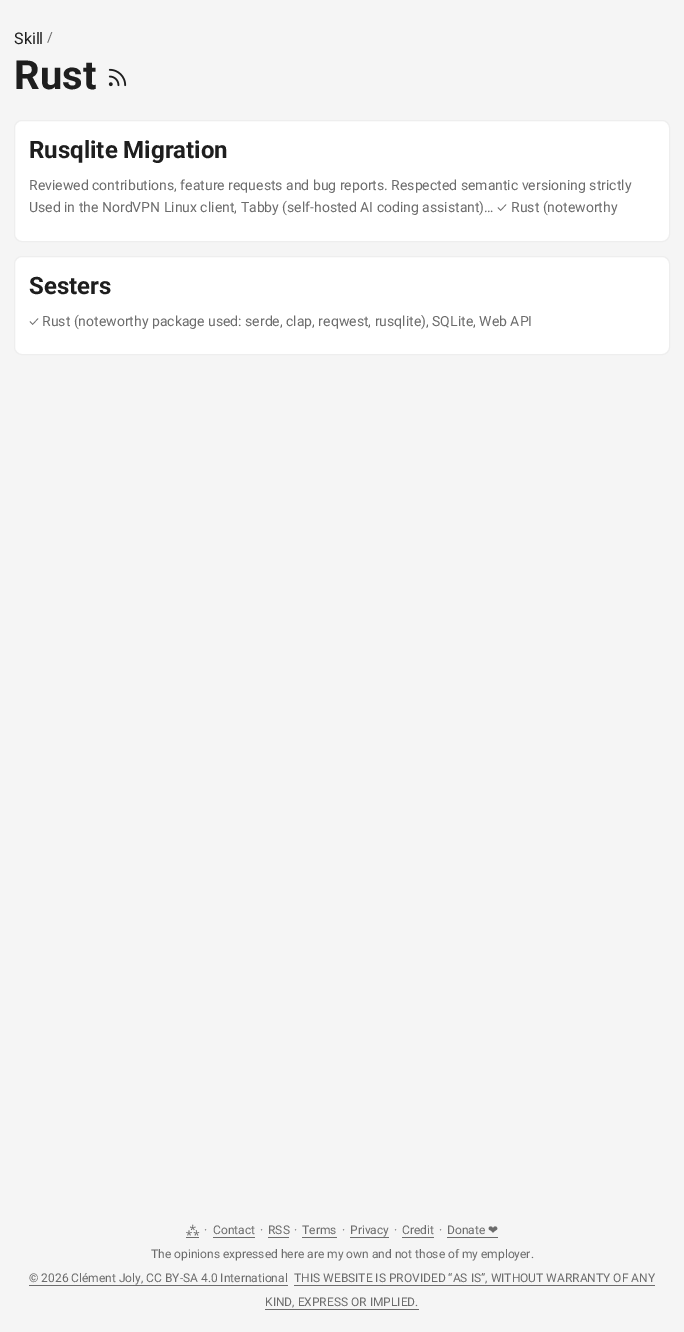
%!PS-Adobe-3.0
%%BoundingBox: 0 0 684 1332
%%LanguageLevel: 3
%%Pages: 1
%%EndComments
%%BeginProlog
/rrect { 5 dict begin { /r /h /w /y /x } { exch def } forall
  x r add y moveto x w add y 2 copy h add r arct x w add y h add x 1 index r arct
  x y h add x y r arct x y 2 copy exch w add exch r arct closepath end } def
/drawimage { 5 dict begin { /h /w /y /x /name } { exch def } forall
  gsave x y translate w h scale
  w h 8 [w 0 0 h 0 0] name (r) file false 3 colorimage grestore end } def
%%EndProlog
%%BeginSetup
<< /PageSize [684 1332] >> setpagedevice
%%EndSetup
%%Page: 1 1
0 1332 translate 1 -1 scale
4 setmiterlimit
0.961 setgray
0 0 684 1332 rectfill
(images/1.raw) 108 68 19 19 drawimage
1 setgray
14.5 120.5 655 121 7.5 rrect gsave fill grestore
0.933 setgray
stroke
1 setgray
14.5 256.5 655 98 7.5 rrect gsave fill grestore
0.933 setgray
stroke
0.424 setgray
186 1237 13 1 rectfill
213 1237 42 1 rectfill
268 1237 21 1 rectfill
302 1237 35 1 rectfill
350 1237 39 1 rectfill
402 1237 32 1 rectfill
447 1237 51 1 rectfill
29 1285 259 1 rectfill
294 1285 361 1 rectfill
265 1309 154 1 rectfill
/Roboto-Regular [16 0 0 -16 0 0] selectfont
0.118 setgray
14 44 moveto (Skill) show
/Roboto-Regular [14 0 0 -14 0 0] selectfont
0.424 setgray
47 42 moveto (/) show
/Roboto-Bold [40 0 0 -40 0 0] selectfont
0.118 setgray
14 89 moveto (Rust) show
/Roboto-Bold [24 0 0 -24 0 0] selectfont
29 158 moveto (Rusqlite Migration) show
/Roboto-Regular [14 0 0 -14 0 0] selectfont
0.424 setgray
29 190 moveto (Reviewed contributions, feature requests and bug reports. Respected semantic versioning strictly) show
29 212 moveto (Used in the NordVPN Linux client, Tabby \(self-hosted AI coding assistant\)…) show
/Ubuntu-Regular [14 0 0 -14 0 0] selectfont
497 212 moveto (✓) show
/Roboto-Regular [14 0 0 -14 0 0] selectfont
511 212 moveto (Rust \(noteworthy) show
/Roboto-Bold [24 0 0 -24 0 0] selectfont
0.118 setgray
29 294 moveto (Sesters) show
/Ubuntu-Regular [14 0 0 -14 0 0] selectfont
0.424 setgray
29 326 moveto (✓) show
/Roboto-Regular [14 0 0 -14 0 0] selectfont
42 326 moveto (Rust \(noteworthy package used: serde, clap, reqwest, rusqlite\), SQLite, Web API) show
/NotoSans-Regular [12 0 0 -12 0 0] selectfont
186 1234 moveto (⁂) show
/Roboto-Regular [12 0 0 -12 0 0] selectfont
204 1234 moveto (·) show
213 1234 moveto (Contact) show
260 1234 moveto (·) show
268 1234 moveto (RSS) show
294 1234 moveto (·) show
302 1234 moveto (Terms) show
342 1234 moveto (·) show
350 1234 moveto (Privacy) show
394 1234 moveto (·) show
402 1234 moveto (Credit) show
439 1234 moveto (·) show
447 1234 moveto (Donate) show
/DejaVuSans-Regular [12 0 0 -12 0 0] selectfont
488 1234 moveto (❤) show
/Roboto-Regular [12 0 0 -12 0 0] selectfont
151 1258 moveto (The opinions expressed here are my own and not those of my employer.) show
29 1282 moveto (© 2026 Clément Joly, CC BY-SA 4.0 International) show
294 1282 moveto (THIS WEBSITE IS PROVIDED “AS IS”, WITHOUT WARRANTY OF ANY) show
265 1306 moveto (KIND, EXPRESS OR IMPLIED.) show
showpage
%%EOF
